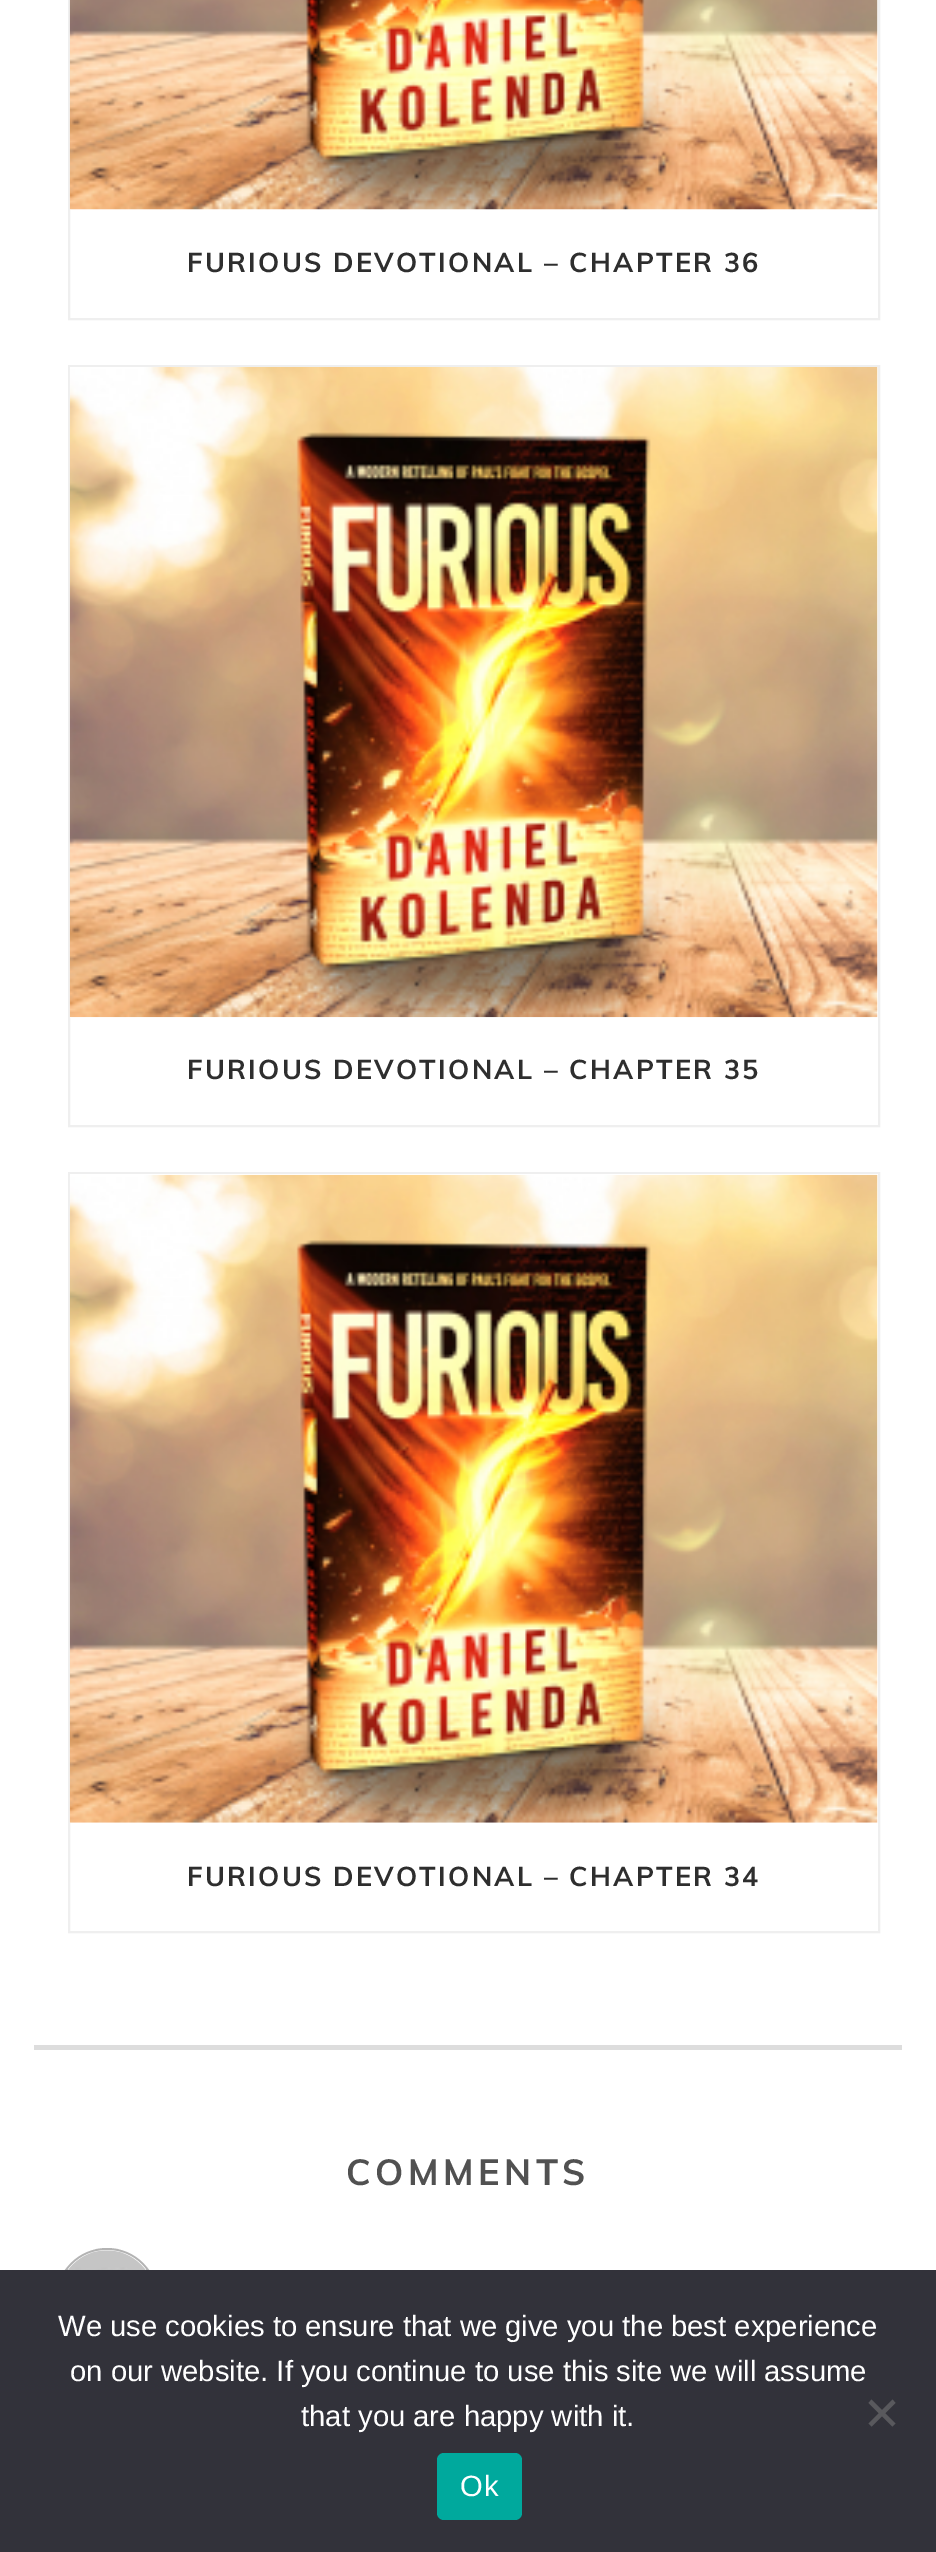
%!PS-Adobe-3.0
%%BoundingBox: 0 0 936 2552
%%LanguageLevel: 3
%%Pages: 1
%%EndComments
%%BeginProlog
/rrect { 5 dict begin { /r /h /w /y /x } { exch def } forall
  x r add y moveto x w add y 2 copy h add r arct x w add y h add x 1 index r arct
  x y h add x y r arct x y 2 copy exch w add exch r arct closepath end } def
/drawimage { 5 dict begin { /h /w /y /x /name } { exch def } forall
  gsave x y translate w h scale
  w h 8 [w 0 0 h 0 0] name (r) file false 3 colorimage grestore end } def
%%EndProlog
%%BeginSetup
<< /PageSize [936 2552] >> setpagedevice
%%EndSetup
%%Page: 1 1
0 2552 translate 1 -1 scale
4 setmiterlimit
1 setgray
0 0 936 2552 rectfill
0.867 setgray
34 2045 868 5 rectfill
0.937 setgray
2 setlinewidth
69 -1 810 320 rectstroke
(images/1.raw) 69 0 809 210 drawimage
69 366 810 760 rectstroke
(images/2.raw) 69 367 809 651 drawimage
69 1173 810 759 rectstroke
(images/3.raw) 69 1174 809 649 drawimage
0.702 setgray
57 2249 100 99 49.5 rrect stroke
(images/4.raw) 68 2250 78 20 drawimage
0.196 0.196 0.227 setrgbcolor
0 2270 936 282 rectfill
0.349 0.349 0.365 setrgbcolor
newpath 892.5 2399.5 moveto 895.5 2403 lineto 871.5 2426.5 lineto 868.5 2423.5 lineto closepath fill
newpath 868.5 2403 moveto 871.5 2399.5 lineto 895.5 2423.5 lineto 892.5 2426.5 lineto closepath fill
0 0.663 0.616 setrgbcolor
437 2453 85 67 7 rrect fill
/Muli-Bold [27 0 0 -27 0 0] selectfont
0.18 setgray
187 272 moveto 2.25 0 (FURIOUS DEVOTIONAL – CHAPTER 36) ashow
187 1079 moveto 2.25 0 (FURIOUS DEVOTIONAL – CHAPTER 35) ashow
187 1886 moveto 2.25 0 (FURIOUS DEVOTIONAL – CHAPTER 34) ashow
/Muli-Bold [36 0 0 -36 0 0] selectfont
0.318 setgray
346 2185 moveto 4.5 0 (COMMENTS) ashow
/LiberationSans-Regular [29.25 0 0 -29.25 0 0] selectfont
1 setgray
58 2336 moveto (We use cookies to ensure that we give you the best experience) show
70 2381 moveto (on our website. If you continue to use this site we will assume) show
301 2426 moveto (that you are happy with it.) show
460 2496 moveto 1 0 (Ok) ashow
showpage
%%EOF
